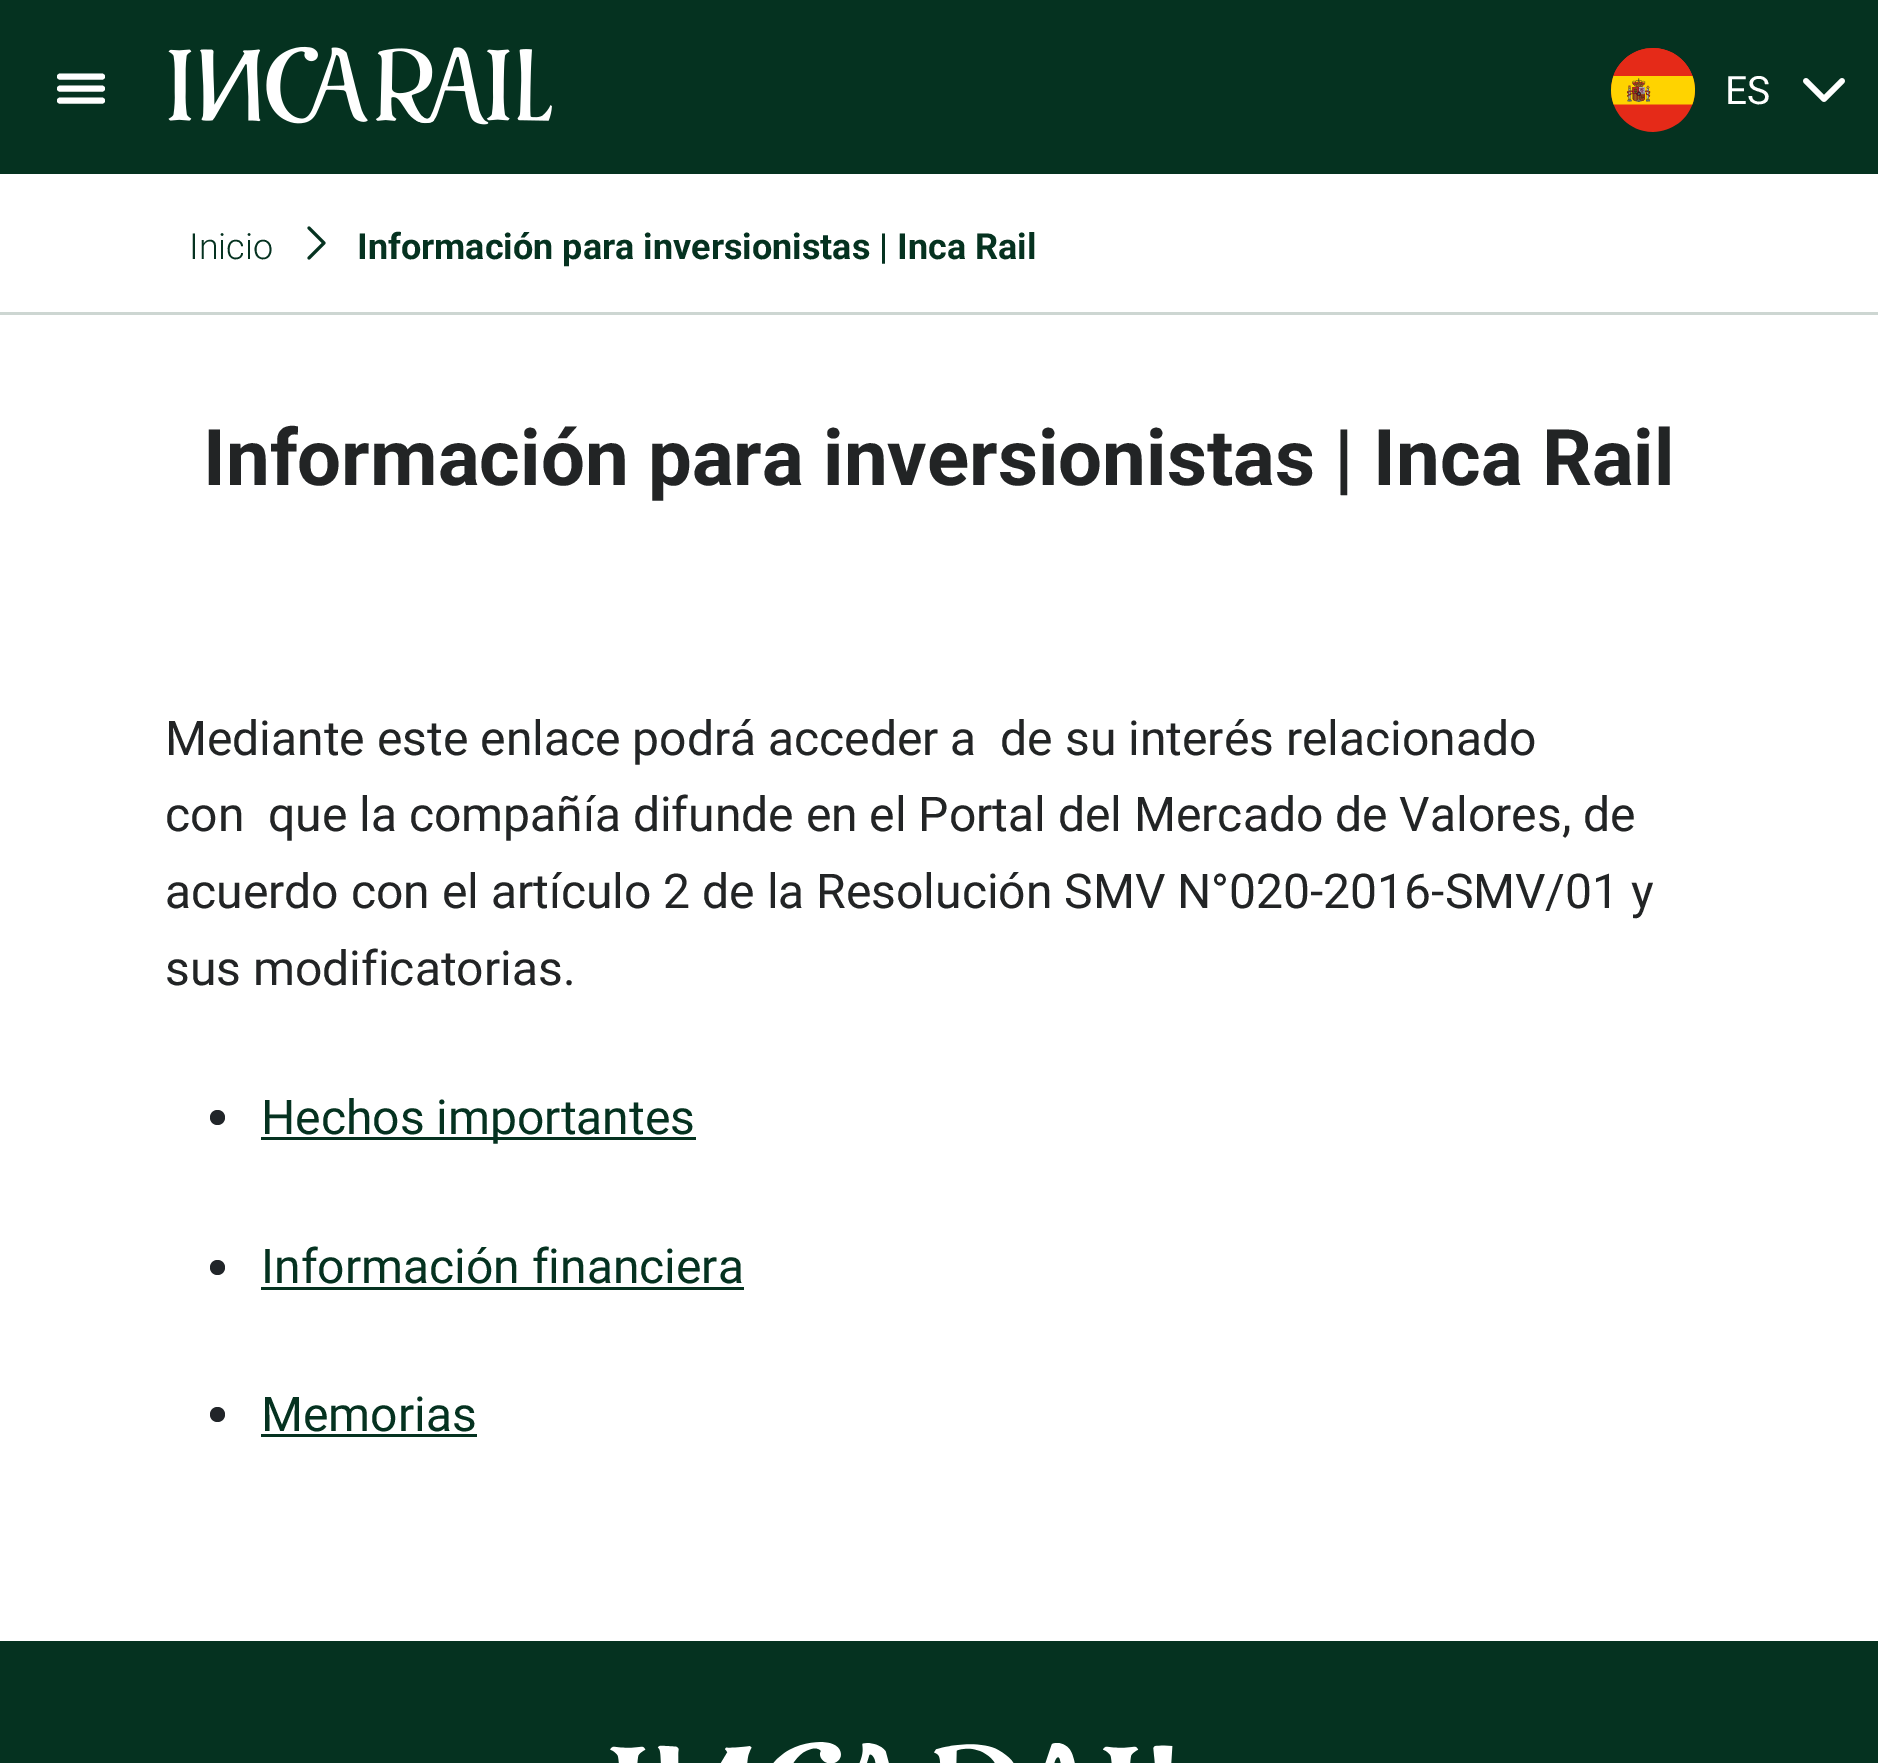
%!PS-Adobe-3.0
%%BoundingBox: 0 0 1878 1763
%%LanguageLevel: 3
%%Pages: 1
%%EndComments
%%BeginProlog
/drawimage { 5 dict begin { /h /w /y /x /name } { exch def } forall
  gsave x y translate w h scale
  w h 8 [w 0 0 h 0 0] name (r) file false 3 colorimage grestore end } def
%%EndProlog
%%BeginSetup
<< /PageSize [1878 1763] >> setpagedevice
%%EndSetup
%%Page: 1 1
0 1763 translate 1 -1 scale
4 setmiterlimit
1 setgray
0 0 1878 1763 rectfill
0.02 0.196 0.125 setrgbcolor
0 0 1878 174 rectfill
1 setgray
6 setlinewidth
1 setlinecap
1 setlinejoin
newpath 60 100.5 moveto 102 100.5 lineto 60 88.5 moveto 102 88.5 lineto 60 76.5 moveto 102 76.5 lineto stroke
(images/1.raw) 168 46 384 79 drawimage
(images/2.raw) 1611 48 84 84 drawimage
(images/3.raw) 1803 78 42 24 drawimage
0.804 0.839 0.824 setrgbcolor
0 312 1878 3 rectfill
0.02 0.196 0.125 setrgbcolor
3 setlinewidth
newpath 309 258 moveto 324 243 lineto 309 228 lineto stroke
0.129 0.145 0.161 setrgbcolor
newpath 217.5 1117.5 7.5 0 360 arc closepath fill
0.02 0.196 0.125 setrgbcolor
261 1137 435 3 rectfill
0.129 0.145 0.161 setrgbcolor
newpath 217.5 1267.5 7.5 0 360 arc closepath fill
0.02 0.196 0.125 setrgbcolor
261 1287 483 3 rectfill
0.129 0.145 0.161 setrgbcolor
newpath 217.5 1414.5 7.5 0 360 arc closepath fill
0.02 0.196 0.125 setrgbcolor
261 1434 216 3 rectfill
0 1641 1878 122 rectfill
(images/4.raw) 610 1742 563 21 drawimage
/Roboto-Regular [39 0 0 -39 0 0] selectfont
1 setgray
1725 104 moveto (ES) show
/Roboto-Light [36 0 0 -36 0 0] selectfont
0.02 0.196 0.125 setrgbcolor
189 259 moveto (Inicio) show
/Roboto-Bold [36 0 0 -36 0 0] selectfont
357 259 moveto (Información para inversionistas | Inca Rail) show
/Roboto-Bold [78 0 0 -78 0 0] selectfont
0.133 0.141 0.145 setrgbcolor
203 485 moveto (Información para inversionistas | Inca Rail) show
/Roboto-Regular [48 0 0 -48 0 0] selectfont
165 755 moveto (Mediante este enlace podrá acceder a  de su interés relacionado) show
165 831 moveto (con  que la compañía difunde en el Portal del Mercado de Valores, de) show
165 908 moveto (acuerdo con el artículo 2 de la Resolución SMV N°020-2016-SMV/01 y) show
165 985 moveto (sus modificatorias.) show
0.02 0.196 0.125 setrgbcolor
261 1134 moveto (Hechos importantes) show
261 1283 moveto (Información financiera) show
261 1431 moveto (Memorias) show
showpage
%%EOF
